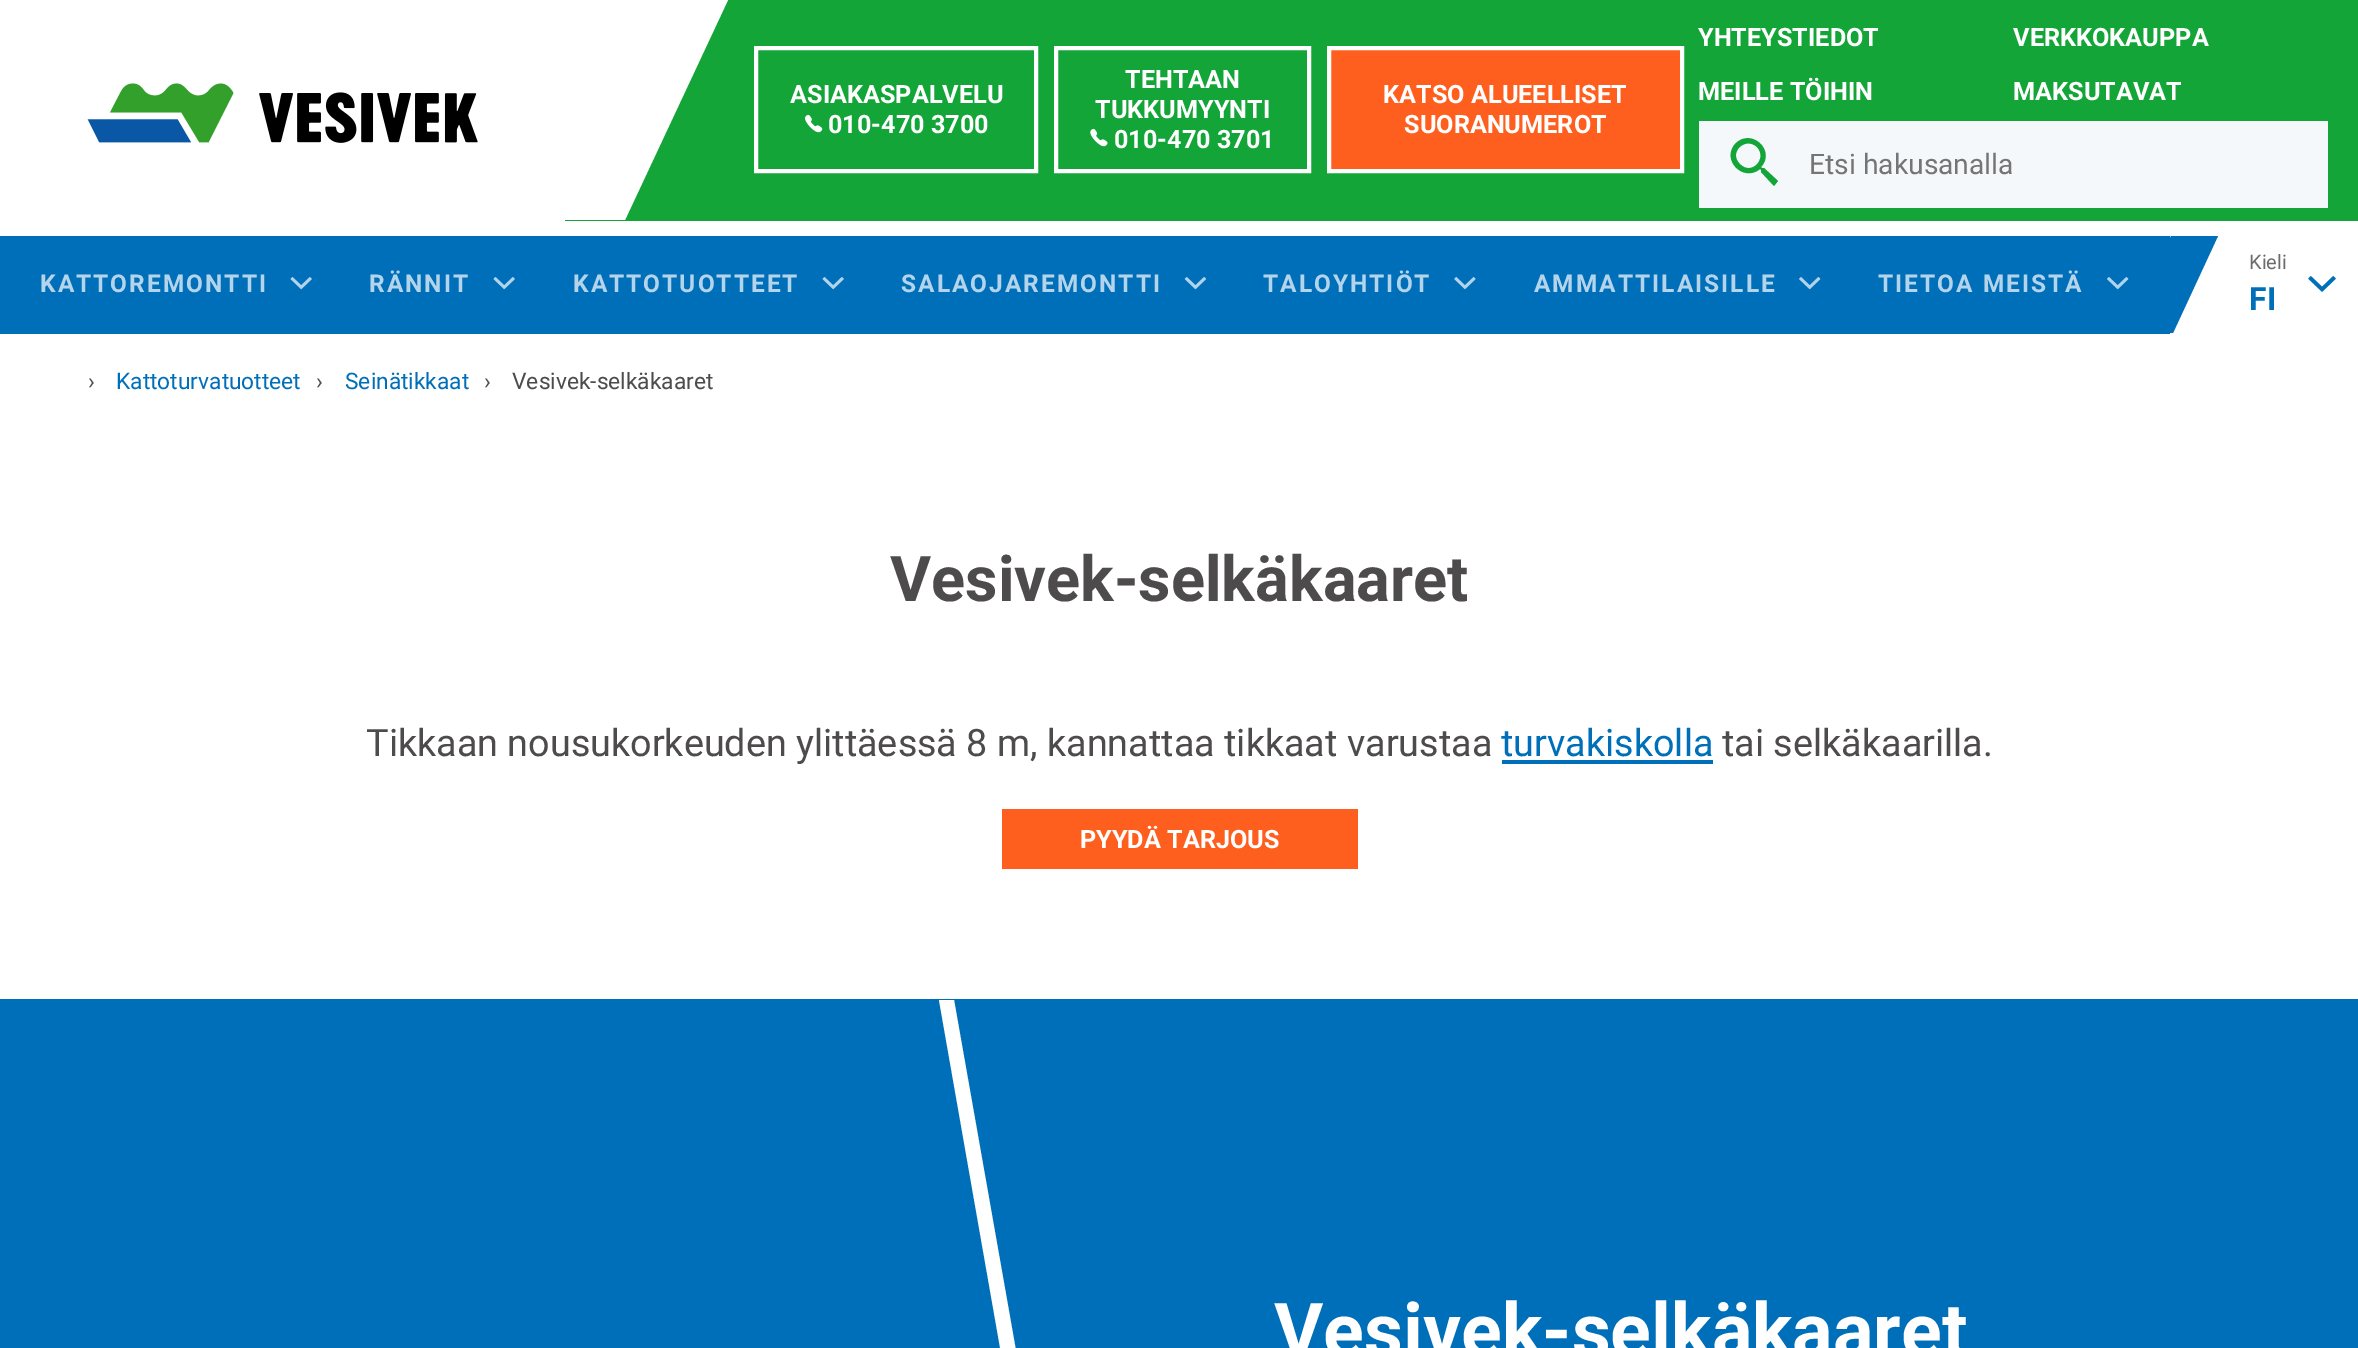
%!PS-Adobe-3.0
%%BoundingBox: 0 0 2358 1348
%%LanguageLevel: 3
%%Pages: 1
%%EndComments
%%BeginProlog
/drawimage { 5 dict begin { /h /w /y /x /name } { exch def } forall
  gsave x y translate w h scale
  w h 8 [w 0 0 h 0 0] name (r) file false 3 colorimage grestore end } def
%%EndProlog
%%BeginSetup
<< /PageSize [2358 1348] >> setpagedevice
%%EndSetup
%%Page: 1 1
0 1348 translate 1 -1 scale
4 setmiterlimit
1 setgray
0 0 2358 1348 rectfill
0.075 0.647 0.22 setrgbcolor
565 0 1793 221 rectfill
1 setgray
newpath 507 0 moveto 728 0 lineto 625 220 lineto 404 220 lineto closepath fill
(images/1.raw) 87 83 391 60 drawimage
4 setlinewidth
756 48 280 123 rectstroke
(images/2.raw) 805 114 18 19 drawimage
1056 48 253 123 rectstroke
(images/3.raw) 1090 128 18 19 drawimage
1 0.373 0.118 setrgbcolor
newpath 1329 48 moveto 1682 48 lineto 1682 171 lineto 1329 171 lineto closepath gsave fill grestore
1 setgray
stroke
0.961 0.973 0.98 setrgbcolor
1699 121 629 87 rectfill
0.075 0.647 0.22 setrgbcolor
newpath 1764 168 moveto 1778 181 lineto 1774 186 lineto 1761 172 lineto 1761 170 lineto 1760 169 lineto 1743 183 1720 159 1736 143 curveto 1752 128 1776 151 1761 167 curveto 1762 168 lineto closepath 1740 164 moveto 1751 176 1768 159 1757 147 curveto 1745 136 1728 153 1740 164 curveto closepath fill
0 0.435 0.725 setrgbcolor
0 236 2170 98 rectfill
(images/4.raw) 290 277 22 13 drawimage
(images/4.raw) 493 277 22 13 drawimage
(images/4.raw) 822 277 22 13 drawimage
(images/5.raw) 1184 277 23 13 drawimage
(images/6.raw) 1454 277 22 13 drawimage
(images/7.raw) 1799 277 22 13 drawimage
newpath 2171 236 moveto 2218 236 lineto 2173 333 lineto 2126 333 lineto closepath fill
(images/7.raw) 2107 277 22 13 drawimage
(images/8.raw) 2308 276 28 16 drawimage
1502 760 211 4 rectfill
1 0.373 0.118 setrgbcolor
1002 809 356 60 rectfill
0 0.435 0.725 setrgbcolor
0 999 2358 349 rectfill
1 setgray
newpath 939 1000 moveto 954 1000 lineto 1121 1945 lineto 1105 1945 lineto closepath fill
/Roboto-Bold [25.25 0 0 -25.25 0 0] selectfont
790 103 moveto (ASIAKASPALVELU) show
828 133 moveto (010-470 3700) show
1125 88 moveto (TEHTAAN) show
1095 118 moveto (TUKKUMYYNTI) show
1114 148 moveto (010-470 3701) show
1383 103 moveto (KATSO ALUEELLISET) show
1404 133 moveto (SUORANUMEROT) show
1698 46 moveto (YHTEYSTIEDOT) show
2013 46 moveto (VERKKOKAUPPA) show
1698 100 moveto (MEILLE TÖIHIN) show
2013 100 moveto (MAKSUTAVAT) show
/Roboto-Regular [28.25 0 0 -28.25 0 0] selectfont
0.459 setgray
1809 174 moveto (Etsi hakusanalla) show
/Roboto-Bold [24.5 0 0 -24.5 0 0] selectfont
0.702 0.831 0.918 setrgbcolor
40 292 moveto 2 0 (KATTOREMONTTI) ashow
369 292 moveto 2 0 (RÄNNIT) ashow
573 292 moveto 2 0 (KATTOTUOTTEET) ashow
901 292 moveto 2 0 (SALAOJAREMONTTI) ashow
1263 292 moveto 2 0 (TALOYHTIÖT) ashow
1534 292 moveto 2 0 (AMMATTILAISILLE) ashow
1878 292 moveto 2 0 (TIETOA MEISTÄ) ashow
/Roboto-Regular [20 0 0 -20 0 0] selectfont
0.424 setgray
2249 269 moveto (Kieli) show
/Roboto-Bold [32 0 0 -32 0 0] selectfont
0 0.435 0.725 setrgbcolor
2249 310 moveto (FI) show
/Roboto-Regular [22.75 0 0 -22.75 0 0] selectfont
0.302 0.294 0.294 setrgbcolor
88 389 moveto (›) show
0 0.435 0.725 setrgbcolor
116 389 moveto (Kattoturvatuotteet) show
0.302 0.294 0.294 setrgbcolor
316 389 moveto (›) show
0 0.435 0.725 setrgbcolor
345 389 moveto (Seinätikkaat) show
0.302 0.294 0.294 setrgbcolor
484 389 moveto (›) show
512 389 moveto (Vesivek-selkäkaaret) show
/Roboto-Bold [63 0 0 -63 0 0] selectfont
890 601 moveto (Vesivek-selkäkaaret) show
/Roboto-Regular [37.8 0 0 -37.8 0 0] selectfont
366 756 moveto (Tikkaan nousukorkeuden ylittäessä 8 m, kannattaa tikkaat varustaa) show
0 0.435 0.725 setrgbcolor
1501 756 moveto (turvakiskolla) show
0.302 0.294 0.294 setrgbcolor
1722 756 moveto (tai selkäkaarilla.) show
/Roboto-Bold [25.25 0 0 -25.25 0 0] selectfont
1 setgray
1080 848 moveto (PYYDÄ TARJOUS) show
/Roboto-Bold [75.5 0 0 -75.5 0 0] selectfont
1274 1357 moveto (Vesivek-selkäkaaret) show
showpage
%%EOF
